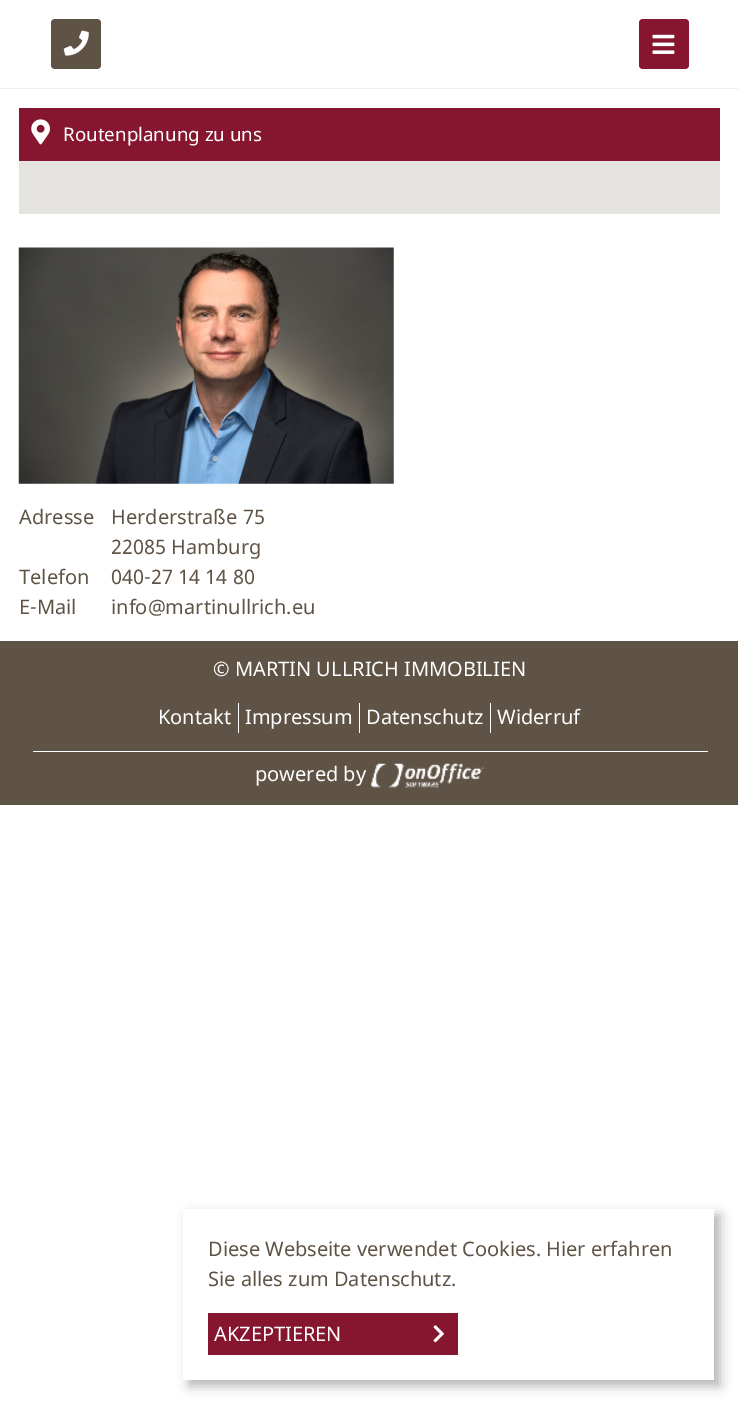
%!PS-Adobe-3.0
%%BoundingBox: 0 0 738 1404
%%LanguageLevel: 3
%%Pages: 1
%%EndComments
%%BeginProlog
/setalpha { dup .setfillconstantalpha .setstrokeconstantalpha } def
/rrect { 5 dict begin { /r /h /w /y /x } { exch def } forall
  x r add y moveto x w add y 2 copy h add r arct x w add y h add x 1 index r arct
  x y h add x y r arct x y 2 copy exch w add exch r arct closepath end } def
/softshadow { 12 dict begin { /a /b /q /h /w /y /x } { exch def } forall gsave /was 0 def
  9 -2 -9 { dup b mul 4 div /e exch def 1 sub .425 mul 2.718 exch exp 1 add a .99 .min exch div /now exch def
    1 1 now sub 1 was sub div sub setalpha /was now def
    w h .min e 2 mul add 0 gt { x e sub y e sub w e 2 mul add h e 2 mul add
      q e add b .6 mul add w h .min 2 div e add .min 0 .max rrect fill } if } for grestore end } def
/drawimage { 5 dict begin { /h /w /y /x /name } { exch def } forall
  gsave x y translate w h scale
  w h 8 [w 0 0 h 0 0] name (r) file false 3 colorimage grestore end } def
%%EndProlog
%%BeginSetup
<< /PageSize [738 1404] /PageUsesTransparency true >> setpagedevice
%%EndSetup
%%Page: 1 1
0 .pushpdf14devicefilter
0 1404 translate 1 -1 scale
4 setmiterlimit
1 setgray
0 0 738 1404 rectfill
0.937 setgray
0 88 738 1 rectfill
0.373 0.325 0.275 setrgbcolor
51 19 50 50 4 rrect fill
(images/1.raw) 63 30 26 26 drawimage
0.525 0.086 0.188 setrgbcolor
639 19 50 50 4 rrect fill
(images/2.raw) 652 34 23 20 drawimage
19 108 701 53 rectfill
(images/3.raw) 31 119 19 26 drawimage
0.898 0.89 0.875 setrgbcolor
19 161 701 53 rectfill
(images/4.raw) 18 247 376 237 drawimage
0.373 0.325 0.275 setrgbcolor
0 641 738 164 rectfill
1 setgray
33 751 675 1 rectfill
238 703 1 30 rectfill
359 703 1 30 rectfill
490 703 1 30 rectfill
(images/5.raw) 371 763 113 25 drawimage
0 setgray
189 1215 531 171 0 6 0.3 softshadow
1 setgray
183 1209 531 171 rectfill
0.525 0.086 0.188 setrgbcolor
208 1313 250 42 rectfill
(images/6.raw) 433 1325 11 18 drawimage
/NotoSans-Regular [18.75 0 0 -18.75 0 0] selectfont
1 setgray
63 141 moveto (Routenplanung zu uns) show
/NotoSans-Regular [20 0 0 -20 0 0] selectfont
0.373 0.325 0.275 setrgbcolor
19 524 moveto (Adresse) show
111 524 moveto (Herderstraße 75) show
111 554 moveto (22085 Hamburg) show
19 584 moveto (Telefon) show
111 584 moveto (040-27 14 14 80) show
19 614 moveto (E-Mail) show
111 614 moveto (info@martinullrich.eu) show
1 setgray
213 676 moveto (© MARTIN ULLRICH IMMOBILIEN) show
158 724 moveto (Kontakt) show
245 724 moveto (Impressum) show
366 724 moveto (Datenschutz) show
497 724 moveto (Widerruf) show
255 781 moveto (powered by) show
0.373 0.325 0.275 setrgbcolor
208 1256 moveto (Diese Webseite verwendet Cookies. Hier erfahren) show
208 1286 moveto (Sie alles zum Datenschutz.) show
1 setgray
214 1341 moveto (AKZEPTIEREN) show
.poppdf14devicefilter showpage
%%EOF
